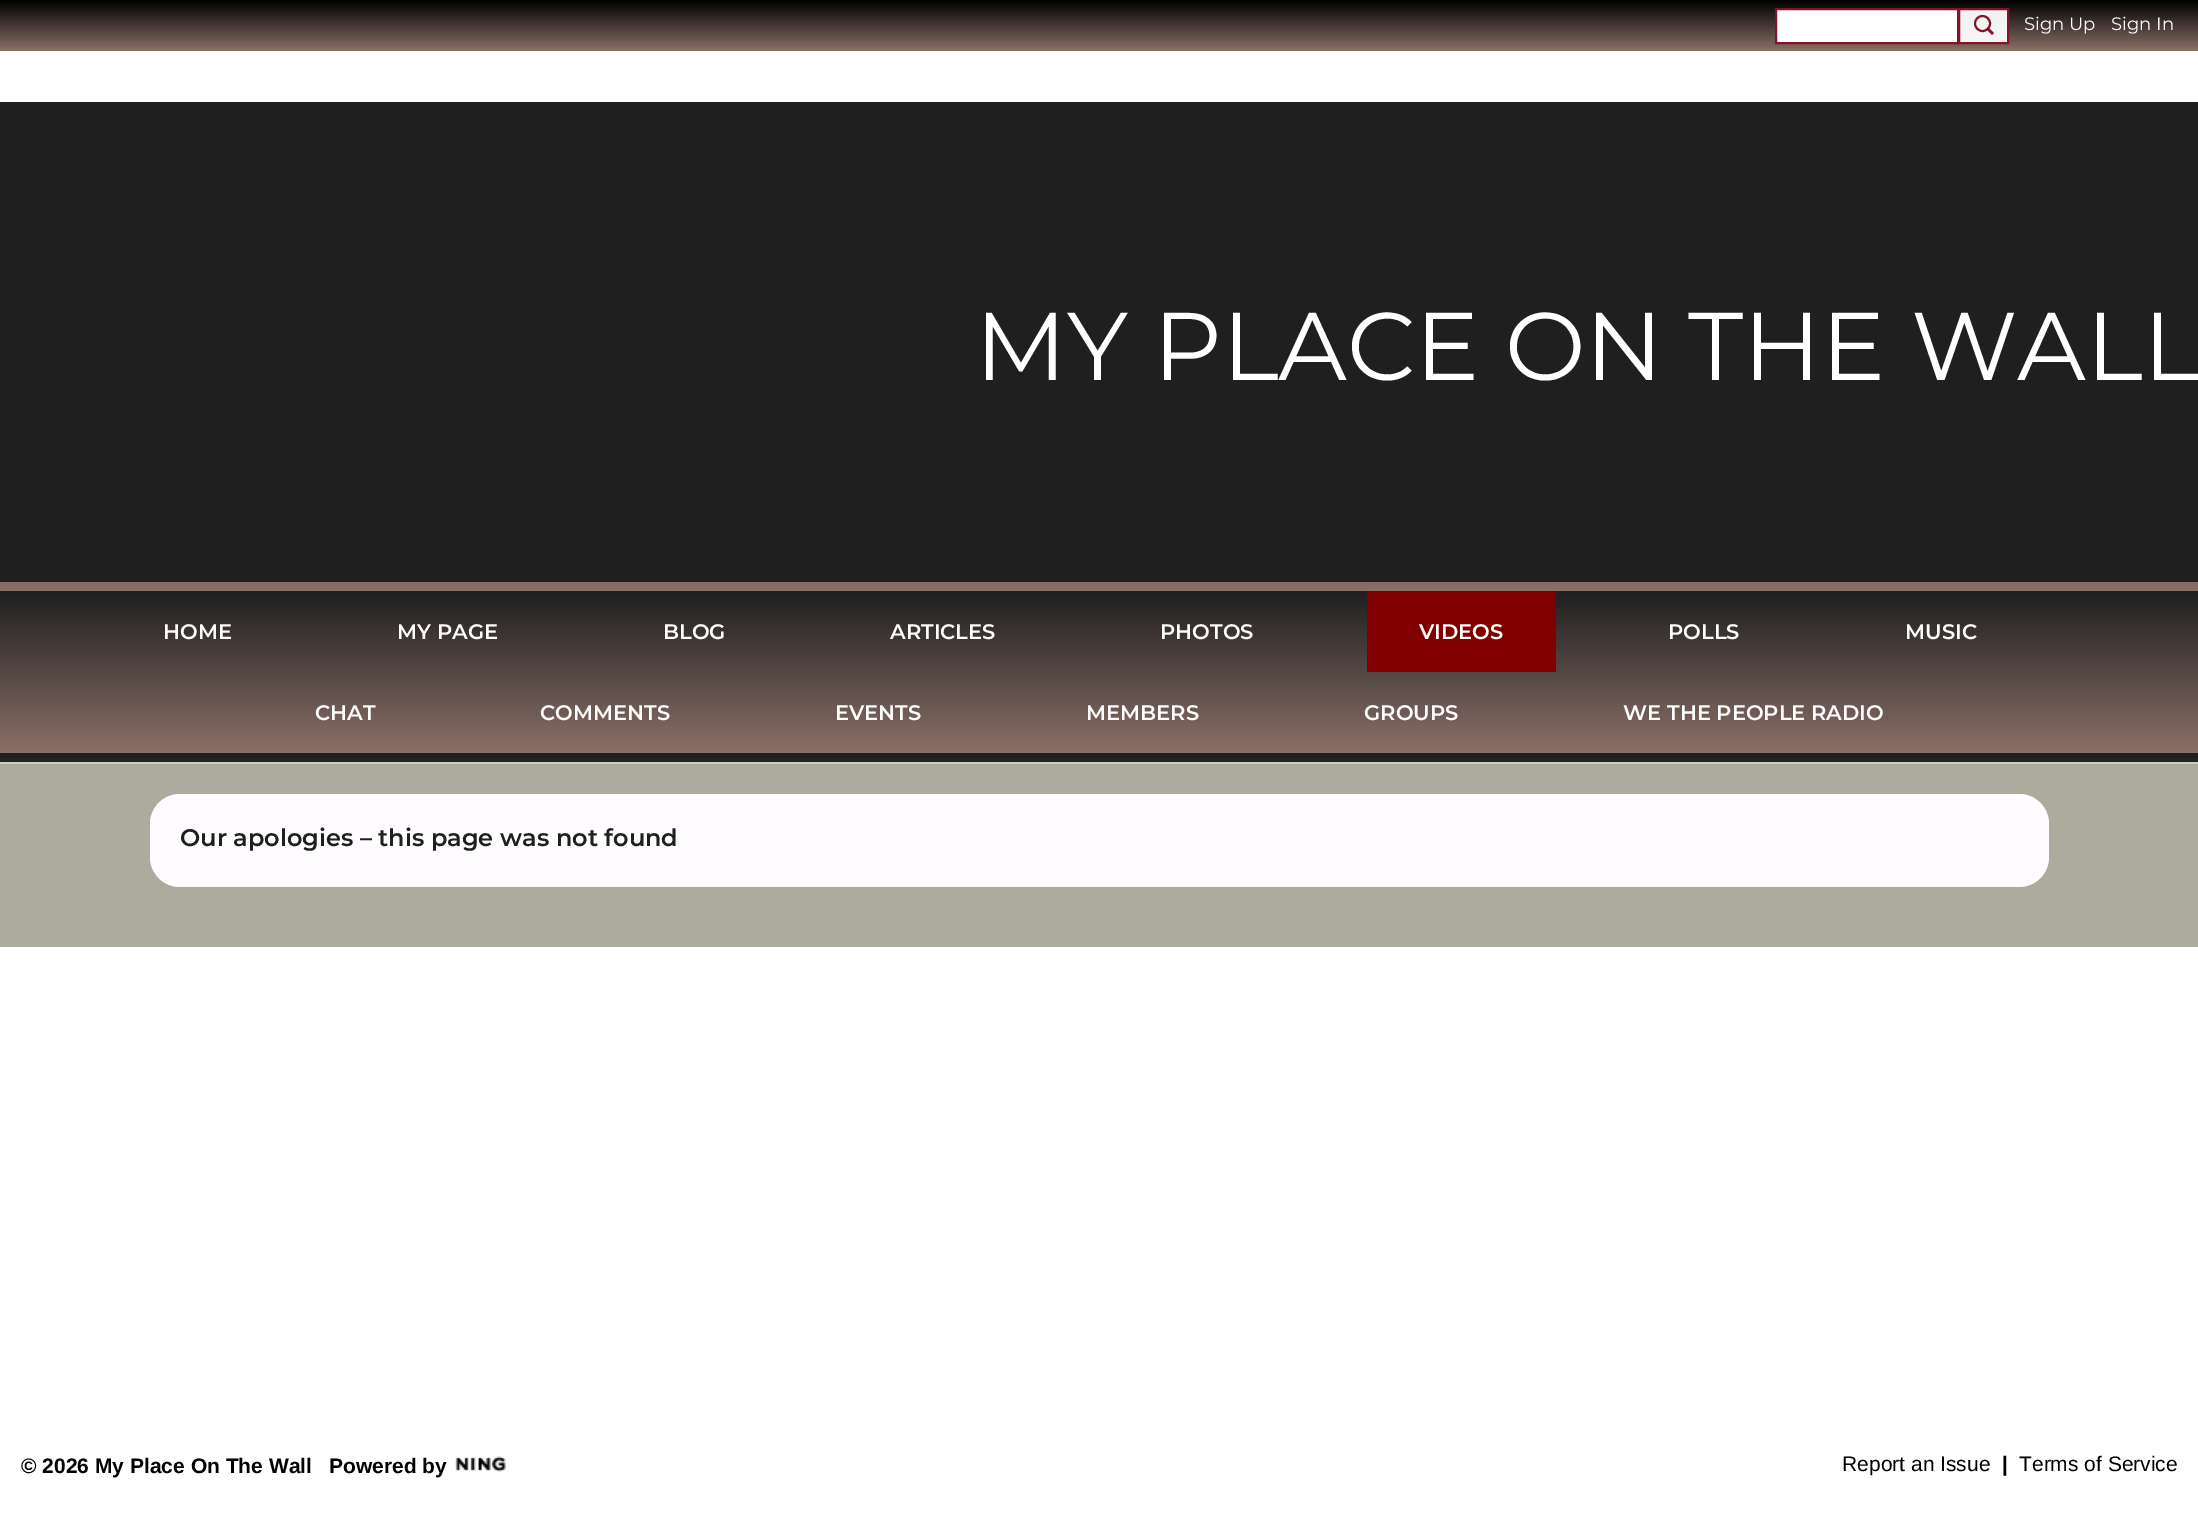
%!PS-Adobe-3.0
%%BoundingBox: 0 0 2198 1514
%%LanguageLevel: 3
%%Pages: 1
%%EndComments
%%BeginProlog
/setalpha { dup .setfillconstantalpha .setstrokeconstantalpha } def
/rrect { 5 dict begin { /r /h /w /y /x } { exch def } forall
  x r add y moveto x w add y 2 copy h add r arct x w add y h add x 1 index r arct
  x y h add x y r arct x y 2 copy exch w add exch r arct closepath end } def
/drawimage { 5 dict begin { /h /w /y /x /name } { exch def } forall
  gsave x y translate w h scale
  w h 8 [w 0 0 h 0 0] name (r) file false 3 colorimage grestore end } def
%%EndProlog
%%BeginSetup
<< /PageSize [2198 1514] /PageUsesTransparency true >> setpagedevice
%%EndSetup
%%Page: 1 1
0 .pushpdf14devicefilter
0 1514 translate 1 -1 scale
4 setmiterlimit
1 setgray
0 0 2198 1514 rectfill
gsave newpath 0 0 moveto 2198 0 lineto 2198 51 lineto 0 51 lineto closepath clip newpath
<< /ShadingType 2 /ColorSpace /DeviceRGB /Coords [1100 0 1100 51] /Extend [true true] /Function << /FunctionType 2 /Domain [0 1] /C0 [0 0 0] /C1 [0.541 0.439 0.404] /N 1 >> >> shfill grestore
newpath 1776 9 moveto 1958 9 lineto 1958 43 lineto 1776 43 lineto closepath gsave fill grestore
0.522 0.067 0.165 setrgbcolor
2 setlinewidth
stroke
0.94 setalpha
1 setgray
newpath 1959 9 moveto 2008 9 lineto 2008 43 lineto 1959 43 lineto closepath fill
1 setalpha
0.522 0.067 0.165 setrgbcolor
newpath 1959 9 moveto 2008 9 lineto 2008 43 lineto 1959 43 lineto closepath stroke
newpath 1982.5 23.5 7.5 0 360 arc closepath stroke
newpath 1990 29 moveto 1993.5 32.5 lineto 1994 33.5 1992.5 35 1991.5 34.5 curveto 1987.5 30.5 lineto 1987 29 1989 27.5 1990 29 curveto closepath fill
0.122 setgray
0 102 2198 480 rectfill
gsave newpath 0 582 moveto 2198 582 lineto 2198 591 lineto 0 591 lineto closepath clip newpath
<< /ShadingType 2 /ColorSpace /DeviceRGB /Coords [1100 429 1100 591] /Extend [true true] /Function << /FunctionType 2 /Domain [0 1] /C0 [0.122 0.122 0.122] /C1 [0.541 0.439 0.404] /N 1 >> >> shfill grestore
gsave newpath 0 591 moveto 2198 591 lineto 2198 753 lineto 0 753 lineto closepath clip newpath
<< /ShadingType 2 /ColorSpace /DeviceRGB /Coords [1100 591 1100 753] /Extend [true true] /Function << /FunctionType 2 /Domain [0 1] /C0 [0.122 0.122 0.122] /C1 [0.541 0.439 0.404] /N 1 >> >> shfill grestore
gsave newpath 0 753 moveto 2198 753 lineto 2198 762 lineto 0 762 lineto closepath clip newpath
<< /ShadingType 2 /ColorSpace /DeviceRGB /Coords [1100 753 1100 915] /Extend [true true] /Function << /FunctionType 2 /Domain [0 1] /C0 [0.122 0.122 0.122] /C1 [0.541 0.439 0.404] /N 1 >> >> shfill grestore
0.502 0 0 setrgbcolor
1367 591 189 81 rectfill
0.671 0.671 0.62 setrgbcolor
0 764 2198 183 rectfill
0.804 0.804 0.773 setrgbcolor
0 762 2198 2 rectfill
1 0.988 1 setrgbcolor
150 794 1899 93 30 rrect fill
(images/1.raw) 455 1456 51 16 drawimage
/Montserrat-Thin [18 0 0 -18 0 0] selectfont
1 setgray
2024 30 moveto (Sign Up) show
2111 30 moveto (Sign In) show
/Montserrat-Thin [96 0 0 -96 0 0] selectfont
975 380 moveto (MY PLACE ON THE WALL) show
/Montserrat-SemiBold [21 0 0 -21 0 0] selectfont
163 639 moveto (HOME) show
397 639 moveto (MY PAGE) show
663 639 moveto (BLOG) show
890 639 moveto (ARTICLES) show
1160 639 moveto (PHOTOS) show
1419 639 moveto (VIDEOS) show
1668 639 moveto (POLLS) show
1905 639 moveto (MUSIC) show
315 720 moveto (CHAT) show
540 720 moveto (COMMENTS) show
835 720 moveto (EVENTS) show
1086 720 moveto (MEMBERS) show
1364 720 moveto (GROUPS) show
1623 720 moveto (WE THE PEOPLE RADIO) show
/Montserrat-SemiBold [24 0 0 -24 0 0] selectfont
0.122 setgray
180 846 moveto (Our apologies – this page was not found) show
/LiberationSans-Bold [21 0 0 -21 0 0] selectfont
0 setgray
21 1473 moveto (© 2026 My Place On The Wall) show
329 1473 moveto (Powered by) show
/LiberationSans-Regular [21 0 0 -21 0 0] selectfont
1842 1471 moveto (Report an Issue) show
/LiberationSans-Bold [21 0 0 -21 0 0] selectfont
2002 1471 moveto (|) show
/LiberationSans-Regular [21 0 0 -21 0 0] selectfont
2019 1471 moveto (Terms of Service) show
.poppdf14devicefilter showpage
%%EOF
